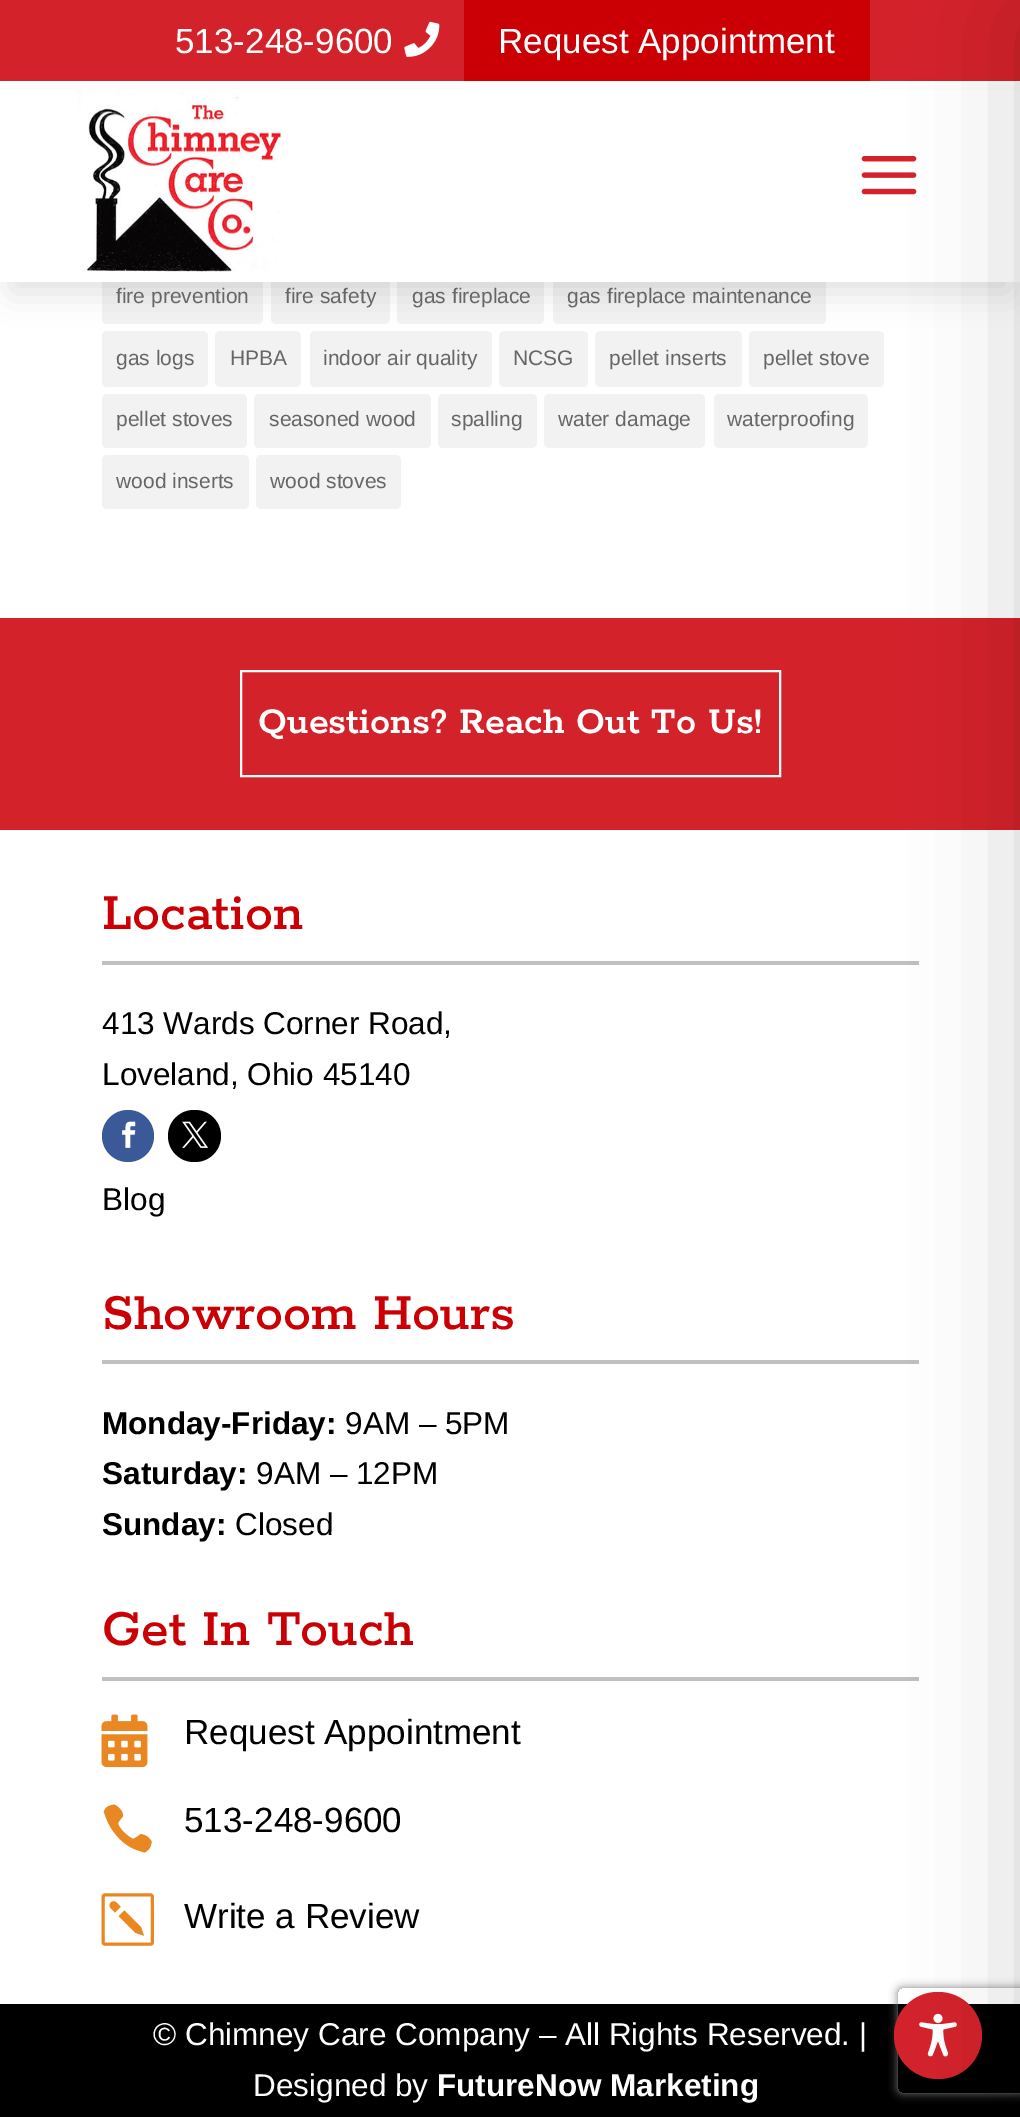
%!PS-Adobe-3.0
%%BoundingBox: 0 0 1020 2117
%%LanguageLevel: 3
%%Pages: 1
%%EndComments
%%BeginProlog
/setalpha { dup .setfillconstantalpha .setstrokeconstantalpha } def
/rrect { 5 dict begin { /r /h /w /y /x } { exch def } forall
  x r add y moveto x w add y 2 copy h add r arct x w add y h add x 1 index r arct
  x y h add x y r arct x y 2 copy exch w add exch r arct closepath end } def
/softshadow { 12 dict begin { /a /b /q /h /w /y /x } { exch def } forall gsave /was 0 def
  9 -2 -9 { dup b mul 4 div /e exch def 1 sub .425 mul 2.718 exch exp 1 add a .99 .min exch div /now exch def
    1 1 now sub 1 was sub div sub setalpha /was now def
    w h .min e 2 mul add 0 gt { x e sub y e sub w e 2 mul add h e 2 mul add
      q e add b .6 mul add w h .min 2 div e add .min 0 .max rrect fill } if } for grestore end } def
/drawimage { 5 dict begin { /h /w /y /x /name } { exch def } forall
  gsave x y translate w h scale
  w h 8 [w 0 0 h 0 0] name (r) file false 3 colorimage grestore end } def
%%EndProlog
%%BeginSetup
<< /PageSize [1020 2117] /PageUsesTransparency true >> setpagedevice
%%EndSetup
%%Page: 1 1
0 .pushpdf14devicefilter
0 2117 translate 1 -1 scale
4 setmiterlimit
1 setgray
0 0 1020 2117 rectfill
0.831 0.133 0.169 setrgbcolor
0 0 1020 81 rectfill
(images/1.raw) 404 21 36 36 drawimage
0.792 0 0.016 setrgbcolor
464 0 406 81 rectfill
0.949 setgray
102 270 161 54 5 rrect fill
271 270 119 54 5 rrect fill
397 270 147 54 5 rrect fill
553 270 273 54 5 rrect fill
102 331 106 56 5 rrect fill
215 331 86 56 5 rrect fill
310 331 182 56 5 rrect fill
499 331 89 56 5 rrect fill
595 331 147 56 5 rrect fill
749 331 135 56 5 rrect fill
0.039 setgray
11 112 999 180 0 16 0.13 softshadow
1 setgray
0 90 1020 192 rectfill
(images/2.raw) 77 89 204 183 drawimage
(images/3.raw) 861 156 56 39 drawimage
0.949 setgray
102 394 145 54 5 rrect fill
254 394 177 54 5 rrect fill
438 394 99 54 5 rrect fill
544 394 161 54 5 rrect fill
714 394 154 54 5 rrect fill
102 455 147 54 5 rrect fill
256 455 145 54 5 rrect fill
0.831 0.133 0.169 setrgbcolor
0 618 1020 212 rectfill
1 setgray
2 setlinewidth
241 671 539 105 rectstroke
0.753 setgray
102 961 817 4 rectfill
0.231 0.349 0.596 setrgbcolor
newpath 128 1136 26 0 360 arc closepath fill
(images/4.raw) 122 1121 14 27 drawimage
0 setgray
168 1110 53 52 26 rrect fill
(images/5.raw) 182 1121 26 27 drawimage
0.753 setgray
102 1360 817 4 rectfill
102 1677 817 4 rectfill
(images/6.raw) 101 1714 47 54 drawimage
(images/7.raw) 103 1804 49 49 drawimage
(images/8.raw) 101 1893 53 53 drawimage
0 setgray
0 2004 1020 113 rectfill
gsave
newpath 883 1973 moveto 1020 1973 lineto 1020 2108 lineto 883 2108 lineto closepath 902 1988 moveto 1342 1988 lineto 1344 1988 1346 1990 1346 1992 curveto 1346 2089 lineto 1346 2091 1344 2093 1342 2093 curveto 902 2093 lineto 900 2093 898 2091 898 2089 curveto 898 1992 lineto 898 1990 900 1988 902 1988 curveto closepath eoclip newpath
0.502 setgray
898 1988 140 105 4 4.5 1 softshadow
grestore
0.831 0.133 0.169 setrgbcolor
894 1992 88 87 43.5 rrect fill
(images/9.raw) 919 2013 38 44 drawimage
0 setgray
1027 18 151 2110 0 52.5 0.2 softshadow
/LiberationSans-Regular [35 0 0 -35 0 0] selectfont
1 setgray
175 53 moveto (513-248-9600) show
498 53 moveto (Request Appointment) show
/LiberationSans-Regular [21 0 0 -21 0 0] selectfont
0.4 setgray
116 303 moveto (fire prevention) show
285 303 moveto (fire safety) show
412 303 moveto (gas fireplace) show
567 303 moveto (gas fireplace maintenance) show
116 365 moveto (gas logs) show
230 365 moveto (HPBA) show
323 365 moveto (indoor air quality) show
513 365 moveto (NCSG) show
609 365 moveto (pellet inserts) show
763 365 moveto (pellet stove) show
116 426 moveto (pellet stoves) show
269 426 moveto (seasoned wood) show
451 426 moveto (spalling) show
558 426 moveto (water damage) show
727 426 moveto (waterproofing) show
116 488 moveto (wood inserts) show
270 488 moveto (wood stoves) show
/Rokkitt-SemiBold [40.25 0 0 -40.25 0 0] selectfont
1 setgray
258 733 moveto (Questions? Reach Out To Us!) show
/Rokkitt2-SemiBold [56 0 0 -56 0 0] selectfont
0.792 0 0.016 setrgbcolor
102 929 moveto (Location) show
/LiberationSans-Regular [31.5 0 0 -31.5 0 0] selectfont
0 setgray
102 1034 moveto (413 Wards Corner Road,) show
102 1085 moveto (Loveland, Ohio 45140) show
102 1210 moveto (Blog) show
/Rokkitt2-SemiBold [56 0 0 -56 0 0] selectfont
0.792 0 0.016 setrgbcolor
102 1329 moveto (Showroom Hours) show
/LiberationSans-Bold [31.5 0 0 -31.5 0 0] selectfont
0 setgray
102 1434 moveto (Monday-Friday:) show
/LiberationSans-Regular [31.5 0 0 -31.5 0 0] selectfont
345 1434 moveto (9AM – 5PM) show
/LiberationSans-Bold [31.5 0 0 -31.5 0 0] selectfont
102 1484 moveto (Saturday:) show
/LiberationSans-Regular [31.5 0 0 -31.5 0 0] selectfont
256 1484 moveto (9AM – 12PM) show
/LiberationSans-Bold [31.5 0 0 -31.5 0 0] selectfont
102 1535 moveto (Sunday:) show
/LiberationSans-Regular [31.5 0 0 -31.5 0 0] selectfont
235 1535 moveto (Closed) show
/Rokkitt2-SemiBold [56 0 0 -56 0 0] selectfont
0.792 0 0.016 setrgbcolor
102 1645 moveto (Get In Touch) show
/LiberationSans-Regular [35 0 0 -35 0 0] selectfont
0 setgray
184 1744 moveto (Request Appointment) show
184 1832 moveto (513-248-9600) show
184 1928 moveto (Write a Review) show
/LiberationSans-Regular [31.5 0 0 -31.5 0 0] selectfont
1 setgray
153 2045 moveto (© Chimney Care Company – All Rights Reserved. |) show
253 2096 moveto (Designed by) show
/LiberationSans-Bold [31.5 0 0 -31.5 0 0] selectfont
437 2096 moveto (FutureNow Marketing) show
.poppdf14devicefilter showpage
%%EOF
